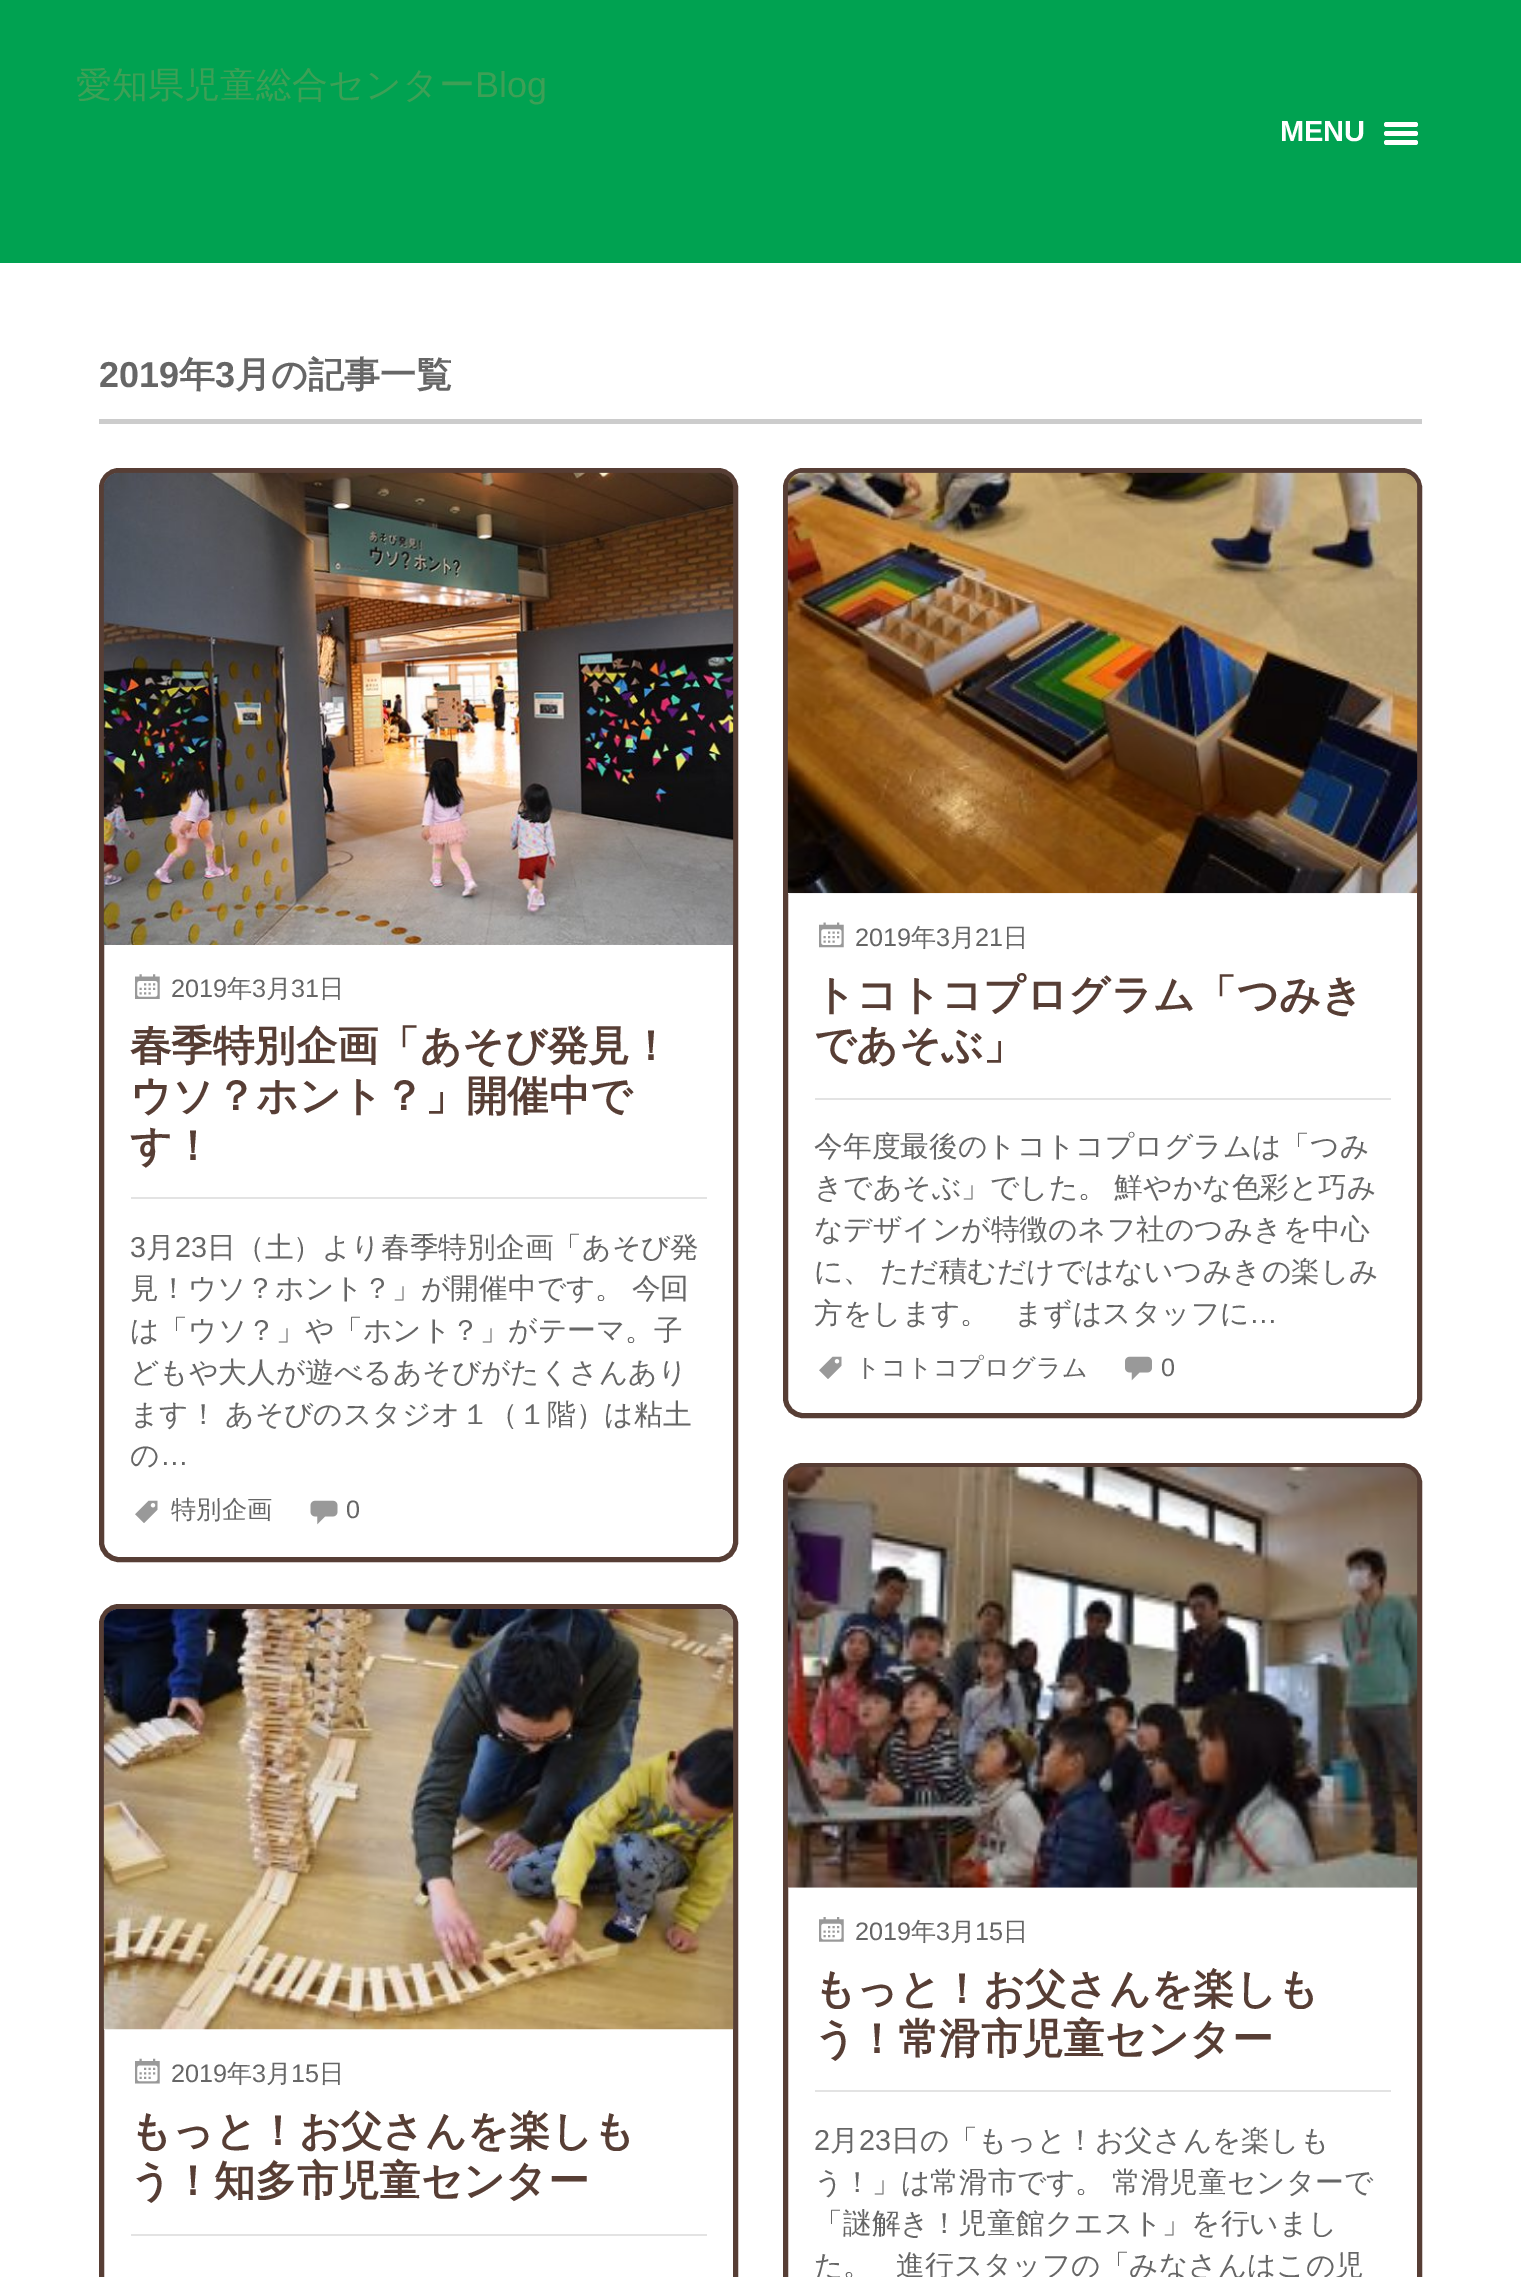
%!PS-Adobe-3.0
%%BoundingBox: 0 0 1521 2277
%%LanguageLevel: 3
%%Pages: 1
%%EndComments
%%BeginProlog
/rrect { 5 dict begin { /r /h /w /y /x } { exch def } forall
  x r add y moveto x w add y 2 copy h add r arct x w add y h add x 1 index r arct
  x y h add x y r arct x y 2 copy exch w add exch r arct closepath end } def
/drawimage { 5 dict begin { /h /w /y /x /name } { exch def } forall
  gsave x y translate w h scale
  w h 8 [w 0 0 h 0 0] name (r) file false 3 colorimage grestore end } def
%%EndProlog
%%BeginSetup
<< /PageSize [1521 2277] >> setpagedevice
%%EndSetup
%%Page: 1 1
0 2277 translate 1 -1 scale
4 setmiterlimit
1 setgray
0 0 1521 2277 rectfill
0 0.635 0.318 setrgbcolor
0 0 1521 263 rectfill
1 setgray
1384 122 34 5 2.5 rrect fill
1384 131 34 5 2.5 rrect fill
1384 140 34 5 2.5 rrect fill
0.8 setgray
99 419 1323 5 rectfill
0.341 0.243 0.208 setrgbcolor
5 setlinewidth
101.5 470.5 634 1089 17.5 rrect stroke
(images/1.raw) 103 472 631 473 drawimage
(images/2.raw) 135 974 25 25 drawimage
0.89 setgray
131 1197 576 2 rectfill
(images/3.raw) 135 1500 23 23 drawimage
(images/4.raw) 310 1500 28 25 drawimage
0.341 0.243 0.208 setrgbcolor
785.5 470.5 634 945 17.5 rrect stroke
(images/5.raw) 787 472 631 422 drawimage
(images/6.raw) 819 922 25 26 drawimage
0.89 setgray
815 1098 576 2 rectfill
(images/3.raw) 819 1356 23 23 drawimage
(images/7.raw) 1125 1356 27 25 drawimage
0.341 0.243 0.208 setrgbcolor
101.5 1606.5 634 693 17.5 rrect stroke
(images/8.raw) 103 1609 631 421 drawimage
(images/9.raw) 135 2058 25 26 drawimage
0.89 setgray
131 2234 576 2 rectfill
0.341 0.243 0.208 setrgbcolor
785.5 1465.5 634 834 17.5 rrect stroke
(images/10.raw) 787 1467 631 421 drawimage
(images/11.raw) 819 1917 25 25 drawimage
0.89 setgray
815 2090 576 2 rectfill
gsave
77 68 607 128 rectclip
/WenQuanYiZenHei-Medium [36 0 0 -36 0 0] selectfont
0.239 0.627 0.337 setrgbcolor
76 97 moveto (愛知県児童総合センター) show
grestore
/LiberationSans-Regular [36 0 0 -36 0 0] selectfont
0.239 0.627 0.337 setrgbcolor
475 97 moveto (Blog) show
/LiberationSans-Bold [29 0 0 -29 0 0] selectfont
1 setgray
1280 141 moveto (MENU) show
/LiberationSans-Bold [36 0 0 -36 0 0] selectfont
0.4 setgray
99 387 moveto (2019) show
/WenQuanYiZenHei-Bold [36 0 0 -36 0 0] selectfont
179 387 moveto (年) show
/LiberationSans-Bold [36 0 0 -36 0 0] selectfont
215 387 moveto (3) show
/WenQuanYiZenHei-Bold [36 0 0 -36 0 0] selectfont
235 387 moveto (月の記事一覧) show
/LiberationSans-Regular [25.25 0 0 -25.25 0 0] selectfont
171 997 moveto (2019) show
/WenQuanYiZenHei-Medium [25.25 0 0 -25.25 0 0] selectfont
227 997 moveto (年) show
/LiberationSans-Regular [25.25 0 0 -25.25 0 0] selectfont
252 997 moveto (3) show
/WenQuanYiZenHei-Medium [25.25 0 0 -25.25 0 0] selectfont
266 997 moveto (月) show
/LiberationSans-Regular [25.25 0 0 -25.25 0 0] selectfont
291 997 moveto (31) show
/WenQuanYiZenHei-Medium [25.25 0 0 -25.25 0 0] selectfont
319 997 moveto (日) show
/WenQuanYiZenHei-Bold [41.4 0 0 -41.4 0 0] selectfont
0.341 0.243 0.208 setrgbcolor
130 1060 moveto (春季特別企画「あそび発見！) show
130 1110 moveto (ウソ？ホント？」開催中で) show
130 1160 moveto (す！) show
/LiberationSans-Regular [28.75 0 0 -28.75 0 0] selectfont
0.4 setgray
130 1257 moveto (3) show
/WenQuanYiZenHei-Medium [28.75 0 0 -28.75 0 0] selectfont
146 1257 moveto (月) show
/LiberationSans-Regular [28.75 0 0 -28.75 0 0] selectfont
175 1257 moveto (23) show
/WenQuanYiZenHei-Medium [28.75 0 0 -28.75 0 0] selectfont
207 1257 moveto (日（土）より春季特別企画「あそび発) show
130 1298 moveto -1 0 32 (見！ウソ？ホント？」が開催中です。 今回) widthshow
130 1340 moveto (は「ウソ？」や「ホント？」がテーマ。子) show
130 1382 moveto (どもや大人が遊べるあそびがたくさんあり) show
130 1424 moveto -1 0 32 (ます！ あそびのスタジオ１（１階）は粘土) widthshow
130 1465 moveto (の) show
/LiberationSans-Regular [28.75 0 0 -28.75 0 0] selectfont
160 1465 moveto (…) show
/WenQuanYiZenHei-Medium [25.25 0 0 -25.25 0 0] selectfont
171 1518 moveto (特別企画) show
/LiberationSans-Regular [25.25 0 0 -25.25 0 0] selectfont
346 1518 moveto (0) show
855 946 moveto (2019) show
/WenQuanYiZenHei-Medium [25.25 0 0 -25.25 0 0] selectfont
911 946 moveto (年) show
/LiberationSans-Regular [25.25 0 0 -25.25 0 0] selectfont
936 946 moveto (3) show
/WenQuanYiZenHei-Medium [25.25 0 0 -25.25 0 0] selectfont
950 946 moveto (月) show
/LiberationSans-Regular [25.25 0 0 -25.25 0 0] selectfont
975 946 moveto (21) show
/WenQuanYiZenHei-Medium [25.25 0 0 -25.25 0 0] selectfont
1003 946 moveto (日) show
/WenQuanYiZenHei-Bold [41.4 0 0 -41.4 0 0] selectfont
0.341 0.243 0.208 setrgbcolor
814 1009 moveto (トコトコプログラム「つみき) show
814 1059 moveto (であそぶ」) show
/WenQuanYiZenHei-Medium [28.75 0 0 -28.75 0 0] selectfont
0.4 setgray
814 1156 moveto (今年度最後のトコトコプログラムは「つみ) show
814 1197 moveto -1 0 32 (きであそぶ」でした。 鮮やかな色彩と巧み) widthshow
814 1239 moveto (なデザインが特徴のネフ社のつみきを中心) show
814 1281 moveto -1 0 32 (に、 ただ積むだけではないつみきの楽しみ) widthshow
814 1323 moveto (方をします。) show
1014 1323 moveto (まずはスタッフに) show
/LiberationSans-Regular [28.75 0 0 -28.75 0 0] selectfont
1249 1323 moveto (…) show
/WenQuanYiZenHei-Medium [25.25 0 0 -25.25 0 0] selectfont
855 1376 moveto (トコトコプログラム) show
/LiberationSans-Regular [25.25 0 0 -25.25 0 0] selectfont
1161 1376 moveto (0) show
171 2082 moveto (2019) show
/WenQuanYiZenHei-Medium [25.25 0 0 -25.25 0 0] selectfont
227 2082 moveto (年) show
/LiberationSans-Regular [25.25 0 0 -25.25 0 0] selectfont
252 2082 moveto (3) show
/WenQuanYiZenHei-Medium [25.25 0 0 -25.25 0 0] selectfont
266 2082 moveto (月) show
/LiberationSans-Regular [25.25 0 0 -25.25 0 0] selectfont
291 2082 moveto (15) show
/WenQuanYiZenHei-Medium [25.25 0 0 -25.25 0 0] selectfont
319 2082 moveto (日) show
/WenQuanYiZenHei-Bold [41.4 0 0 -41.4 0 0] selectfont
0.341 0.243 0.208 setrgbcolor
130 2145 moveto (もっと！お父さんを楽しも) show
130 2195 moveto (う！知多市児童センター) show
/LiberationSans-Regular [25.25 0 0 -25.25 0 0] selectfont
0.4 setgray
855 1940 moveto (2019) show
/WenQuanYiZenHei-Medium [25.25 0 0 -25.25 0 0] selectfont
911 1940 moveto (年) show
/LiberationSans-Regular [25.25 0 0 -25.25 0 0] selectfont
936 1940 moveto (3) show
/WenQuanYiZenHei-Medium [25.25 0 0 -25.25 0 0] selectfont
950 1940 moveto (月) show
/LiberationSans-Regular [25.25 0 0 -25.25 0 0] selectfont
975 1940 moveto (15) show
/WenQuanYiZenHei-Medium [25.25 0 0 -25.25 0 0] selectfont
1003 1940 moveto (日) show
/WenQuanYiZenHei-Bold [41.4 0 0 -41.4 0 0] selectfont
0.341 0.243 0.208 setrgbcolor
814 2003 moveto (もっと！お父さんを楽しも) show
814 2053 moveto (う！常滑市児童センター) show
/LiberationSans-Regular [28.75 0 0 -28.75 0 0] selectfont
0.4 setgray
814 2150 moveto (2) show
/WenQuanYiZenHei-Medium [28.75 0 0 -28.75 0 0] selectfont
830 2150 moveto (月) show
/LiberationSans-Regular [28.75 0 0 -28.75 0 0] selectfont
859 2150 moveto (23) show
/WenQuanYiZenHei-Medium [28.75 0 0 -28.75 0 0] selectfont
891 2150 moveto (日の「もっと！お父さんを楽しも) show
814 2192 moveto -1 0 32 (う！」は常滑市です。 常滑児童センターで) widthshow
814 2233 moveto (「謎解き！児童館クエスト」を行いまし) show
814 2275 moveto (た。) show
896 2275 moveto (進行スタッフの「みなさんはこの児) show
showpage
%%EOF
